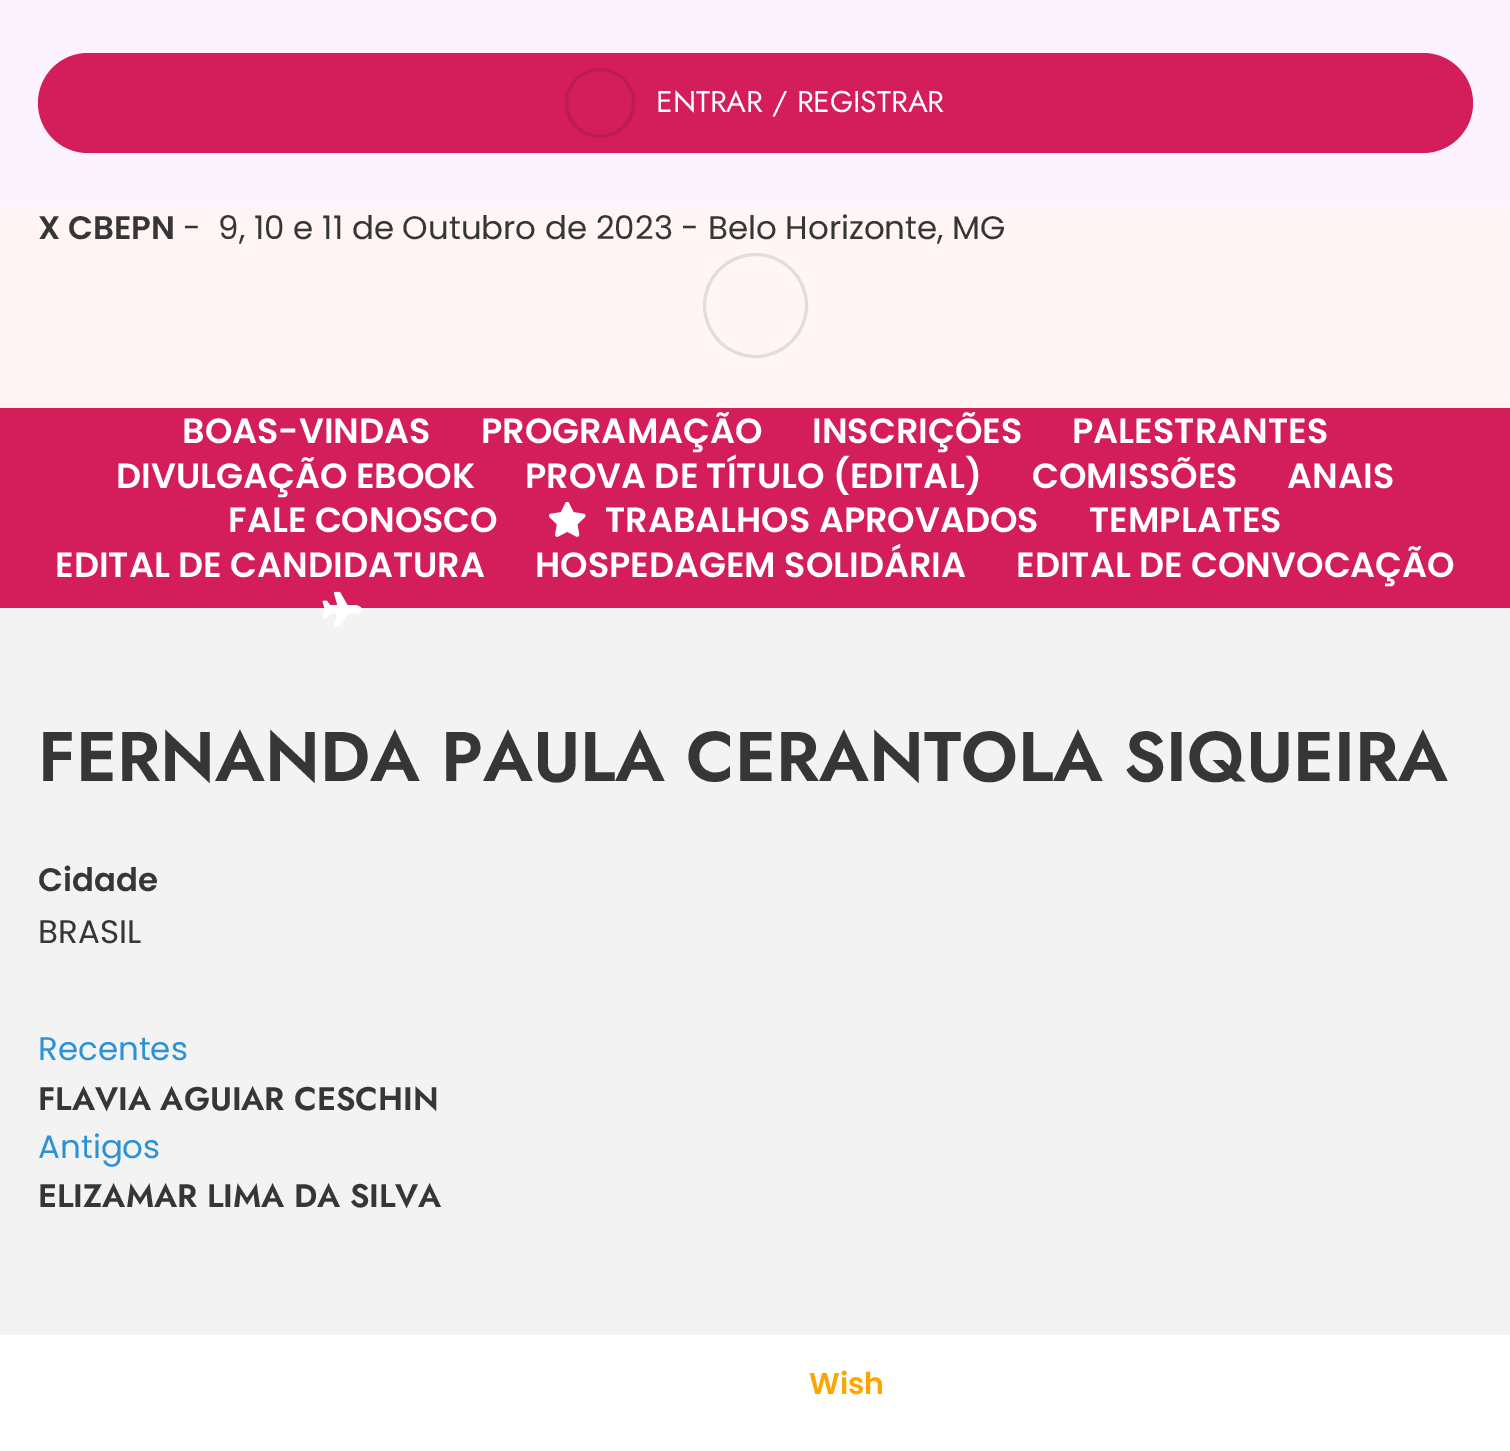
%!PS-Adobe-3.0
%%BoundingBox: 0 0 1510 1451
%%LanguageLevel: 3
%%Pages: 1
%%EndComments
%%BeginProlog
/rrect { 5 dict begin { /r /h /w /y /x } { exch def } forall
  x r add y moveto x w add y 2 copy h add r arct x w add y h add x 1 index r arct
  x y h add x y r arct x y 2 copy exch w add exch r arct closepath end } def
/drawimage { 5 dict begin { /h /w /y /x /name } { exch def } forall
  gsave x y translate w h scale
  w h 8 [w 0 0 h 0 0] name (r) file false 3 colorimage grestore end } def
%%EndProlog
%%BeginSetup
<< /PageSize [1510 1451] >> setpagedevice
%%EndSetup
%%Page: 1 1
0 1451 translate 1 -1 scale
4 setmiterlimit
1 setgray
0 0 1510 1451 rectfill
0.992 0.953 1 setrgbcolor
0 0 1510 205 rectfill
0.831 0.118 0.357 setrgbcolor
38 53 1435 100 50 rrect fill
0.745 0.106 0.318 setrgbcolor
3 setlinewidth
newpath 600 103 33.5 0 360 arc closepath stroke
1 0.961 0.961 setrgbcolor
0 205 1510 203 rectfill
0.894 0.859 0.859 setrgbcolor
newpath 755.5 305.5 51 0 360 arc closepath stroke
0.831 0.118 0.357 setrgbcolor
0 408 1510 200 rectfill
(images/1.raw) 548 501 38 36 drawimage
0.953 setgray
0 608 1510 727 rectfill
(images/2.raw) 322 591 40 36 drawimage
/Jost-Regular [30 0 0 -30 0 0] selectfont
1 setgray
656 112 moveto (ENTRAR / REGISTRAR) show
/Poppins-SemiBold [32.5 0 0 -32.5 0 0] selectfont
0.212 setgray
38 239 moveto (X CBEPN) show
/Poppins-Regular [32.5 0 0 -32.5 0 0] selectfont
183 239 moveto (-  9, 10 e 11 de Outubro de 2023 - Belo Horizonte, MG) show
/Poppins-SemiBold [35 0 0 -35 0 0] selectfont
1 setgray
182 443 moveto (BOAS-VINDAS) show
481 443 moveto (PROGRAMAÇÃO) show
812 443 moveto (INSCRIÇÕES) show
1072 443 moveto (PALESTRANTES) show
116 488 moveto (DIVULGAÇÃO EBOOK) show
525 488 moveto (PROVA DE TÍTULO \(EDITAL\)) show
1032 488 moveto (COMISSÕES) show
1287 488 moveto (ANAIS) show
228 532 moveto (FALE CONOSCO) show
605 532 moveto (TRABALHOS APROVADOS) show
1089 532 moveto (TEMPLATES) show
55 577 moveto (EDITAL DE CANDIDATURA) show
535 577 moveto (HOSPEDAGEM SOLIDÁRIA) show
1016 577 moveto (EDITAL DE CONVOCAÇÃO) show
/Jost-SemiBold [70 0 0 -70 0 0] selectfont
0.212 setgray
38 781 moveto (FERNANDA PAULA CERANTOLA SIQUEIRA) show
/Poppins-SemiBold [32.5 0 0 -32.5 0 0] selectfont
38 891 moveto (Cidade) show
/Poppins-Regular [32.5 0 0 -32.5 0 0] selectfont
38 943 moveto (BRASIL) show
0.169 0.573 0.831 setrgbcolor
38 1060 moveto (Recentes) show
/Jost-SemiBold [32.5 0 0 -32.5 0 0] selectfont
0.212 setgray
38 1110 moveto (FLAVIA AGUIAR CESCHIN) show
/Poppins-Regular [32.5 0 0 -32.5 0 0] selectfont
0.169 0.573 0.831 setrgbcolor
38 1158 moveto (Antigos) show
/Jost-SemiBold [32.5 0 0 -32.5 0 0] selectfont
0.212 setgray
38 1207 moveto (ELIZAMAR LIMA DA SILVA) show
/Poppins-SemiBold [30 0 0 -30 0 0] selectfont
1 0.647 0 setrgbcolor
809 1394 moveto (Wish) show
showpage
%%EOF
